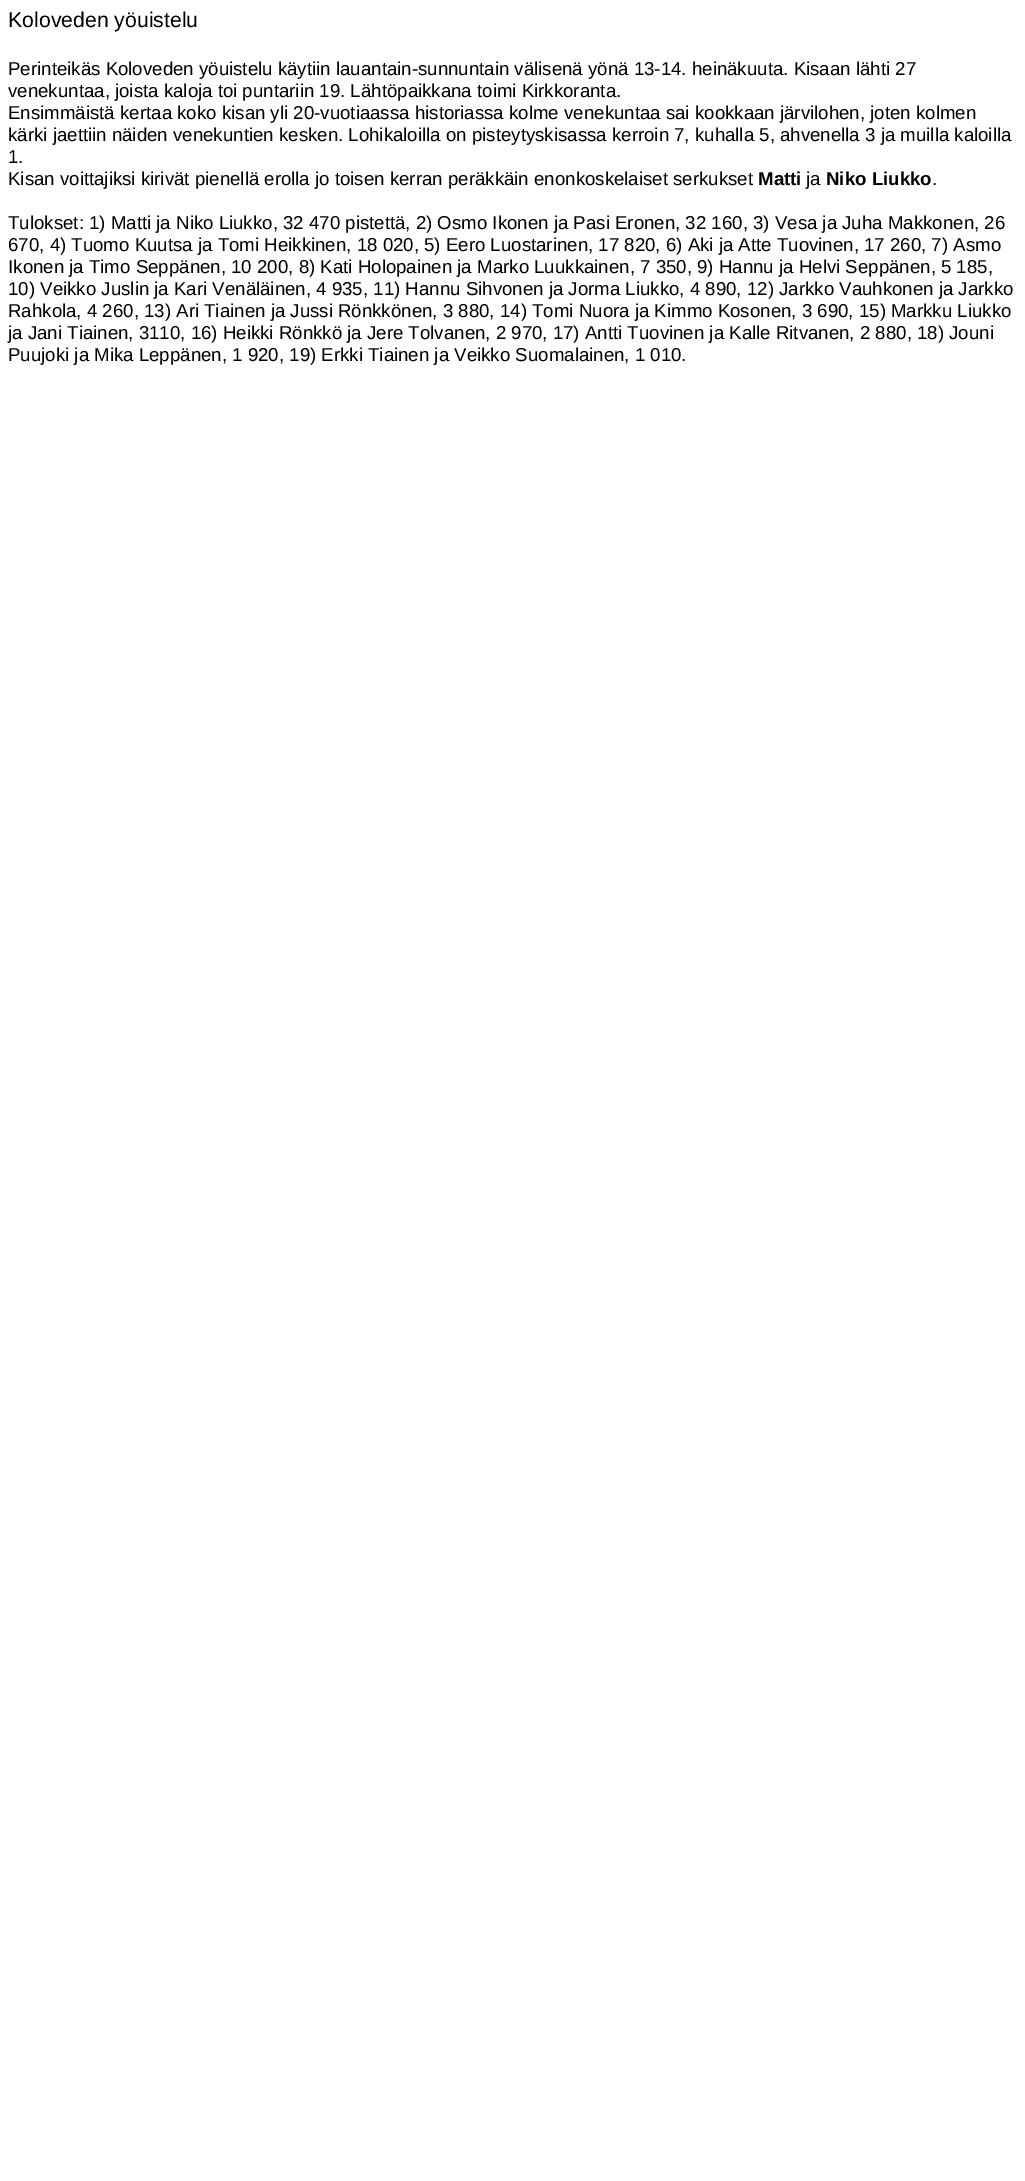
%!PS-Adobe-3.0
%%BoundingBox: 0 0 1025 2181
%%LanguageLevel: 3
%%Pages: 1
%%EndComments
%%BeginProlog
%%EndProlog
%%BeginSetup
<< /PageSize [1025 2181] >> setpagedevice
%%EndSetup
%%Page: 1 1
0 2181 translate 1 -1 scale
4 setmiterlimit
1 setgray
0 0 1025 2181 rectfill
/LiberationSans-Regular [21.25 0 0 -21.25 0 0] selectfont
0 setgray
8 27 moveto (Koloveden yöuistelu) show
/LiberationSans-Regular [18.67 0 0 -18.67 0 0] selectfont
8 75 moveto (Perinteikäs Koloveden yöuistelu käytiin lauantain-sunnuntain välisenä yönä 13-14. heinäkuuta. Kisaan lähti 27) show
8 97 moveto (venekuntaa, joista kaloja toi puntariin 19. Lähtöpaikkana toimi Kirkkoranta.) show
8 119 moveto (Ensimmäistä kertaa koko kisan yli 20-vuotiaassa historiassa kolme venekuntaa sai kookkaan järvilohen, joten kolmen) show
8 141 moveto (kärki jaettiin näiden venekuntien kesken. Lohikaloilla on pisteytyskisassa kerroin 7, kuhalla 5, ahvenella 3 ja muilla kaloilla) show
8 163 moveto (1.) show
8 185 moveto (Kisan voittajiksi kirivät pienellä erolla jo toisen kerran peräkkäin enonkoskelaiset serkukset) show
/LiberationSans-Bold [18.67 0 0 -18.67 0 0] selectfont
758 185 moveto (Matti) show
/LiberationSans-Regular [18.67 0 0 -18.67 0 0] selectfont
806 185 moveto (ja) show
/LiberationSans-Bold [18.67 0 0 -18.67 0 0] selectfont
826 185 moveto (Niko Liukko) show
/LiberationSans-Regular [18.67 0 0 -18.67 0 0] selectfont
932 185 moveto (.) show
8 229 moveto (Tulokset: 1\) Matti ja Niko Liukko, 32 470 pistettä, 2\) Osmo Ikonen ja Pasi Eronen, 32 160, 3\) Vesa ja Juha Makkonen, 26) show
8 251 moveto (670, 4\) Tuomo Kuutsa ja Tomi Heikkinen, 18 020, 5\) Eero Luostarinen, 17 820, 6\) Aki ja Atte Tuovinen, 17 260, 7\) Asmo) show
8 273 moveto (Ikonen ja Timo Seppänen, 10 200, 8\) Kati Holopainen ja Marko Luukkainen, 7 350, 9\) Hannu ja Helvi Seppänen, 5 185,) show
8 295 moveto (10\) Veikko Juslin ja Kari Venäläinen, 4 935, 11\) Hannu Sihvonen ja Jorma Liukko, 4 890, 12\) Jarkko Vauhkonen ja Jarkko) show
8 317 moveto (Rahkola, 4 260, 13\) Ari Tiainen ja Jussi Rönkkönen, 3 880, 14\) Tomi Nuora ja Kimmo Kosonen, 3 690, 15\) Markku Liukko) show
8 339 moveto (ja Jani Tiainen, 3110, 16\) Heikki Rönkkö ja Jere Tolvanen, 2 970, 17\) Antti Tuovinen ja Kalle Ritvanen, 2 880, 18\) Jouni) show
8 361 moveto (Puujoki ja Mika Leppänen, 1 920, 19\) Erkki Tiainen ja Veikko Suomalainen, 1 010.) show
showpage
%%EOF
